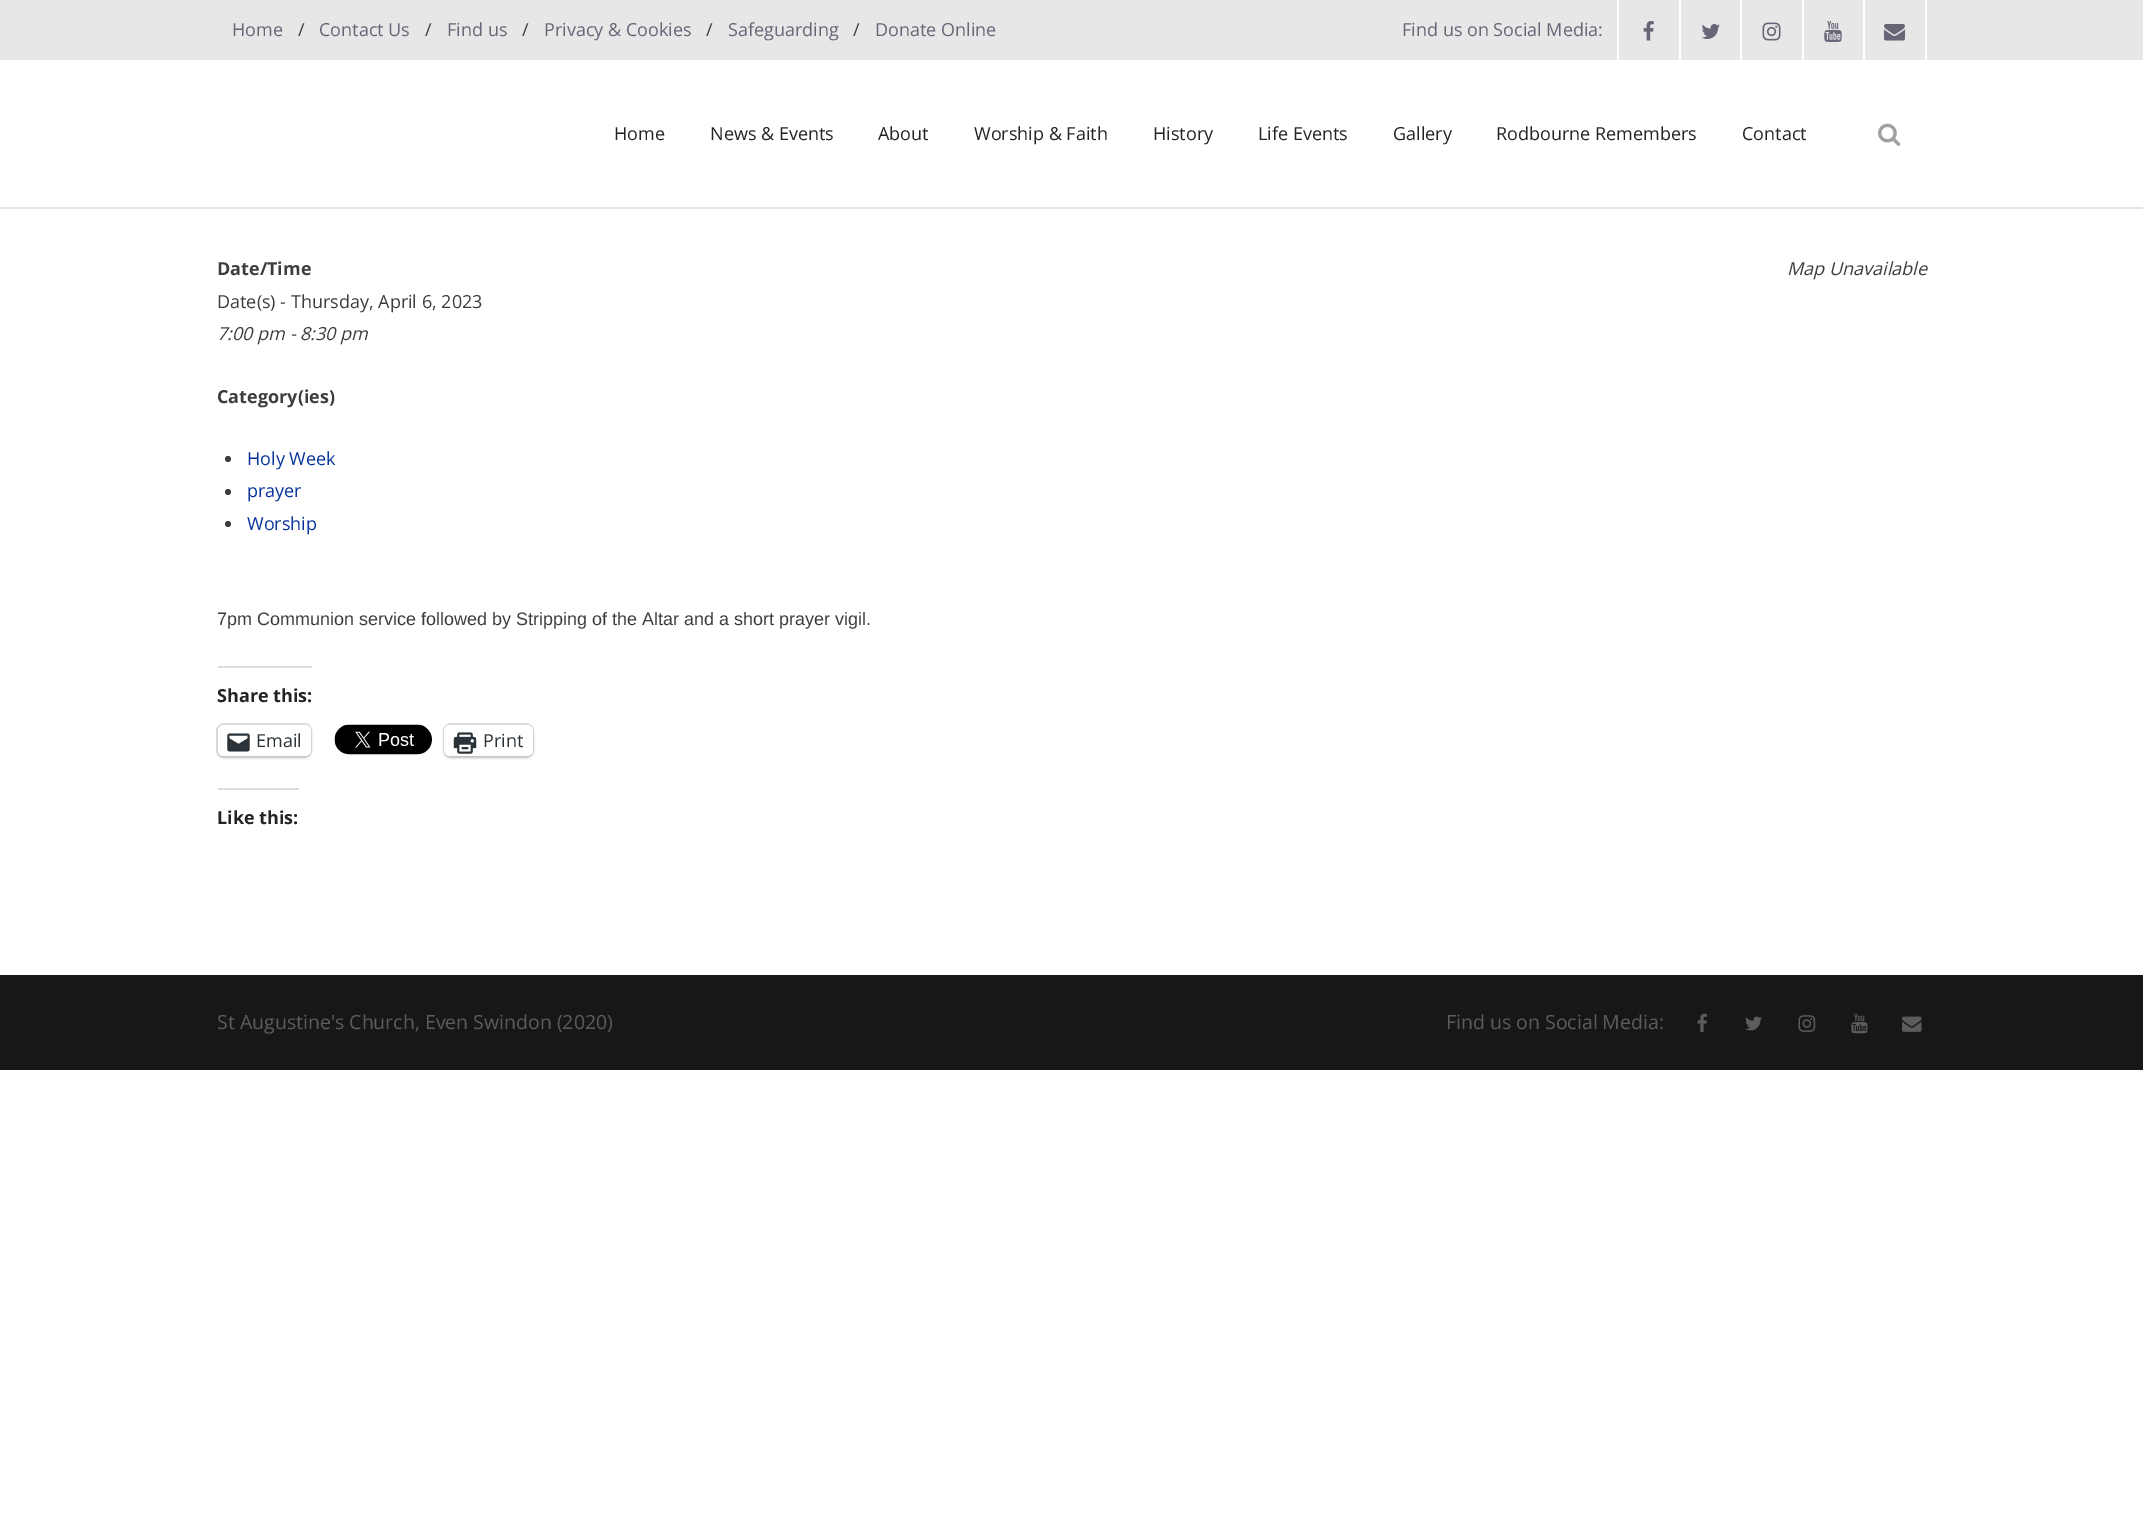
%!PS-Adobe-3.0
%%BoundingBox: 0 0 2143 1515
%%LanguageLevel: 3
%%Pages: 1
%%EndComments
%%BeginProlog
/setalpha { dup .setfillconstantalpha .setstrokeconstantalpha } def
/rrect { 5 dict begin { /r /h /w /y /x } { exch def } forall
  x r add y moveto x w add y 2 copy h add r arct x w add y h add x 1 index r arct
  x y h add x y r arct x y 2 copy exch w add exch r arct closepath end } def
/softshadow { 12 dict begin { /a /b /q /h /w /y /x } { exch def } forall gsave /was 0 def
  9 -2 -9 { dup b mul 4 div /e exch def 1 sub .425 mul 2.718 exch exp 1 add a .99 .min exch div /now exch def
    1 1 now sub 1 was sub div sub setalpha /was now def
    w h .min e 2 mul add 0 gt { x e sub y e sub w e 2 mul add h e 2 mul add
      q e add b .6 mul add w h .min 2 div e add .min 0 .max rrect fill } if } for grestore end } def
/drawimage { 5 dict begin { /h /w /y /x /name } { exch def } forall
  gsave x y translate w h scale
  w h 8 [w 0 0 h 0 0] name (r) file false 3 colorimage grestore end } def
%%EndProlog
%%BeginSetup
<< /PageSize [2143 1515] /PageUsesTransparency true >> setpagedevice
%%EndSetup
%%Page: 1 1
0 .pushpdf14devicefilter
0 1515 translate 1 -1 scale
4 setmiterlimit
1 setgray
0 0 2143 1515 rectfill
0.906 setgray
0 0 2143 60 rectfill
1 setgray
1617 0 2 60 rectfill
(images/1.raw) 1643 21 11 20 drawimage
1679 0 2 60 rectfill
(images/2.raw) 1701 24 19 15 drawimage
1740 0 2 60 rectfill
(images/3.raw) 1762 22 19 19 drawimage
1802 0 2 60 rectfill
(images/4.raw) 1824 21 18 21 drawimage
1925 0 2 60 rectfill
1863 0 2 60 rectfill
(images/5.raw) 1884 24 21 17 drawimage
0.89 setgray
0 207 2143 2 rectfill
(images/6.raw) 1878 123 23 23 drawimage
0.239 setgray
newpath 228 459 3 0 360 arc closepath fill
newpath 228 492 3 0 360 arc closepath fill
newpath 228 524 3 0 360 arc closepath fill
0.863 0.863 0.871 setrgbcolor
218 666 94 2 rectfill
0.878 setgray
2 setlinewidth
217 724 94 33 7 rrect stroke
0 setgray
218 726 93 32 6 1.5 0.12 softshadow
1 setgray
218 725 93 31 6 rrect fill
(images/7.raw) 227 733 23 19 drawimage
(images/8.raw) 334 724 98 31 drawimage
0.878 setgray
444 724 89 33 7 rrect stroke
0 setgray
444 726 89 32 6 1.5 0.12 softshadow
1 setgray
444 725 89 31 6 rrect fill
(images/9.raw) 453 732 24 22 drawimage
0.863 0.863 0.871 setrgbcolor
218 788 81 2 rectfill
0.09 0.09 0.098 setrgbcolor
0 975 2143 95 rectfill
(images/10.raw) 1697 1013 10 19 drawimage
(images/11.raw) 1745 1016 17 15 drawimage
(images/12.raw) 1798 1015 18 17 drawimage
(images/13.raw) 1851 1013 17 21 drawimage
(images/14.raw) 1902 1016 20 16 drawimage
/OpenSans-Regular [18 0 0 -18 0 0] selectfont
0.4 0.4 0.467 setrgbcolor
232 36 moveto (Home) show
0.239 setgray
298 36 moveto (/) show
0.4 0.4 0.467 setrgbcolor
319 36 moveto (Contact Us) show
0.239 setgray
425 36 moveto (/) show
0.4 0.4 0.467 setrgbcolor
447 36 moveto (Find us) show
0.239 setgray
522 36 moveto (/) show
0.4 0.4 0.467 setrgbcolor
544 36 moveto (Privacy & Cookies) show
0.239 setgray
706 36 moveto (/) show
0.4 0.4 0.467 setrgbcolor
728 36 moveto (Safeguarding) show
0.239 setgray
853 36 moveto (/) show
0.4 0.4 0.467 setrgbcolor
875 36 moveto (Donate Online) show
1402 36 moveto (Find us on Social Media:) show
0.137 setgray
614 140 moveto (Home) show
710 140 moveto (News & Events) show
878 140 moveto (About) show
974 140 moveto (Worship & Faith) show
1153 140 moveto (History) show
1258 140 moveto (Life Events) show
1393 140 moveto (Gallery) show
1496 140 moveto (Rodbourne Remembers) show
1742 140 moveto (Contact) show
/OpenSans-Bold [18 0 0 -18 0 0] selectfont
0.239 setgray
217 275 moveto (Date/Time) show
/OpenSans-Regular [18 0 0 -18 0 0] selectfont
217 308 moveto (Date\(s\) - Thursday, April 6, 2023) show
/OpenSans-Italic [18 0 0 -18 0 0] selectfont
217 340 moveto (7:00 pm - 8:30 pm) show
1787 275 moveto (Map Unavailable) show
/OpenSans-Bold [18 0 0 -18 0 0] selectfont
217 403 moveto (Category\(ies\)) show
/OpenSans-Regular [18 0 0 -18 0 0] selectfont
0.027 0.204 0.608 setrgbcolor
247 465 moveto (Holy Week) show
247 497 moveto (prayer) show
247 530 moveto (Worship) show
/LiberationSans-Regular [18 0 0 -18 0 0] selectfont
0.239 setgray
217 625 moveto (7pm Communion service followed by Stripping of the Altar and a short prayer vigil.) show
/OpenSans-Bold [18 0 0 -18 0 0] selectfont
0.137 setgray
217 702 moveto (Share this:) show
/OpenSans-Regular [18 0 0 -18 0 0] selectfont
0.173 0.2 0.22 setrgbcolor
256 747 moveto (Email) show
483 747 moveto (Print) show
/OpenSans-Bold [18 0 0 -18 0 0] selectfont
0.137 setgray
217 824 moveto (Like this:) show
/OpenSans-Regular [19.5 0 0 -19.5 0 0] selectfont
0.361 setgray
217 1029 moveto (St Augustine's Church, Even Swindon \(2020\)) show
1446 1029 moveto (Find us on Social Media:) show
.poppdf14devicefilter showpage
%%EOF
